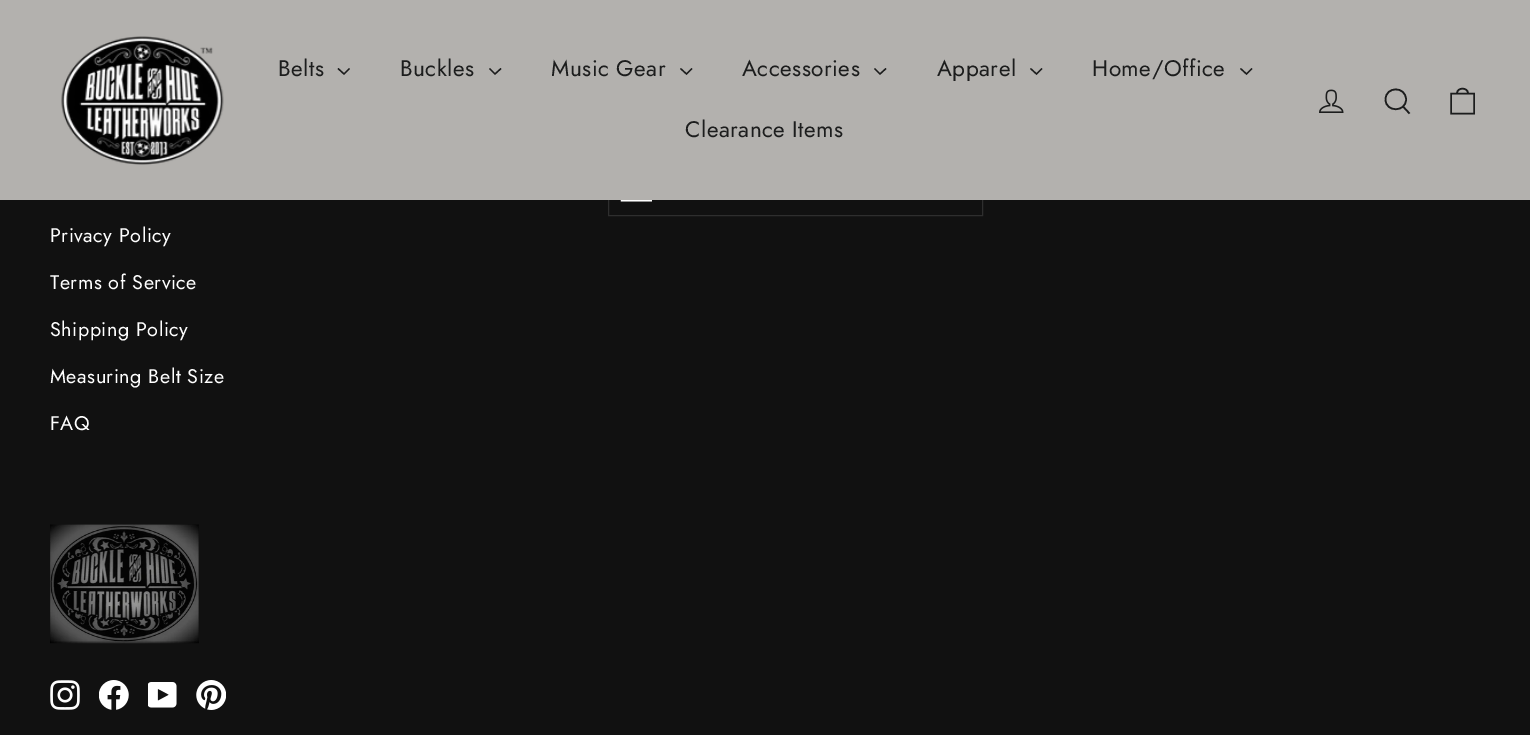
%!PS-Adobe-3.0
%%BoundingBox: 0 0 1530 735
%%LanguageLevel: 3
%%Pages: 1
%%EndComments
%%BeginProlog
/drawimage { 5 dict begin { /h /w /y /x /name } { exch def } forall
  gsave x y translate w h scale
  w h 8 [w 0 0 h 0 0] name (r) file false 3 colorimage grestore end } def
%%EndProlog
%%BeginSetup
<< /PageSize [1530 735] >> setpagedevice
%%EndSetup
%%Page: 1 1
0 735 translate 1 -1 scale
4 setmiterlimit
0.067 setgray
0 0 1530 735 rectfill
0.18 setgray
608.5 163.5 374 52 rectstroke
1 setgray
1.4 setlinewidth
newpath 651 200.5 moveto 621.5 200.5 lineto 621.5 182 lineto 651 182 lineto closepath 621.5 182 moveto 634 193 lineto 638.5 193 lineto 651 182 lineto 631.5 191 moveto 622 200 lineto 650.5 200.5 moveto 640.5 191 lineto stroke
0.702 0.694 0.682 setrgbcolor
0 0 1530 200 rectfill
(images/1.raw) 61 36 163 129 drawimage
0.11 0.114 0.114 setrgbcolor
1.3 setlinewidth
newpath 338 68.5 moveto 344 74 lineto 349.5 68.5 lineto stroke
newpath 489.5 68.5 moveto 495 74 lineto 501 68.5 lineto stroke
newpath 680.5 68.5 moveto 686.5 74 lineto 692 68.5 lineto stroke
newpath 874.5 68.5 moveto 880 74 lineto 886 68.5 lineto stroke
newpath 1030.5 68.5 moveto 1036.5 74 lineto 1042 68.5 lineto stroke
newpath 1240.5 68.5 moveto 1246.5 74 lineto 1252 68.5 lineto stroke
(images/2.raw) 1319 89 25 24 drawimage
1.6 setlinewidth
newpath 1406 99.5 moveto 1406 112.5 1385.5 112.5 1385.5 99.5 curveto 1385.5 86 1406 86 1406 99.5 curveto closepath 1409.5 113.5 moveto 1403 106.5 lineto stroke
newpath 1451 93.5 moveto 1474 93.5 lineto 1474 113.5 lineto 1451 113.5 lineto closepath 1457 93.5 moveto 1457 87 1468 87 1468 93.5 curveto stroke
(images/3.raw) 50 524 149 120 drawimage
(images/4.raw) 50 680 30 30 drawimage
(images/5.raw) 99 680 30 30 drawimage
(images/6.raw) 148 682 29 26 drawimage
(images/7.raw) 196 680 30 30 drawimage
/Jost-Regular [22.5 0 0 -22.5 0 0] selectfont
278 76 moveto 0.5 0 (Belts) ashow
400 76 moveto 0.5 0 (Buckles) ashow
551 76 moveto 0.5 0 (Music Gear) ashow
742 76 moveto 0.5 0 (Accessories) ashow
937 76 moveto 0.5 0 (Apparel) ashow
1092 76 moveto 0.5 0 (Home/Office) ashow
685 137 moveto 0.5 0 (Clearance Items) ashow
/Jost-Regular [19.75 0 0 -19.75 0 0] selectfont
1 setgray
50 242 moveto 0.5 0 (Privacy Policy) ashow
50 289 moveto 0.5 0 (Terms of Service) ashow
50 336 moveto 0.5 0 (Shipping Policy) ashow
50 383 moveto 0.5 0 (Measuring Belt Size) ashow
50 430 moveto 0.5 0 (FAQ) ashow
showpage
%%EOF
